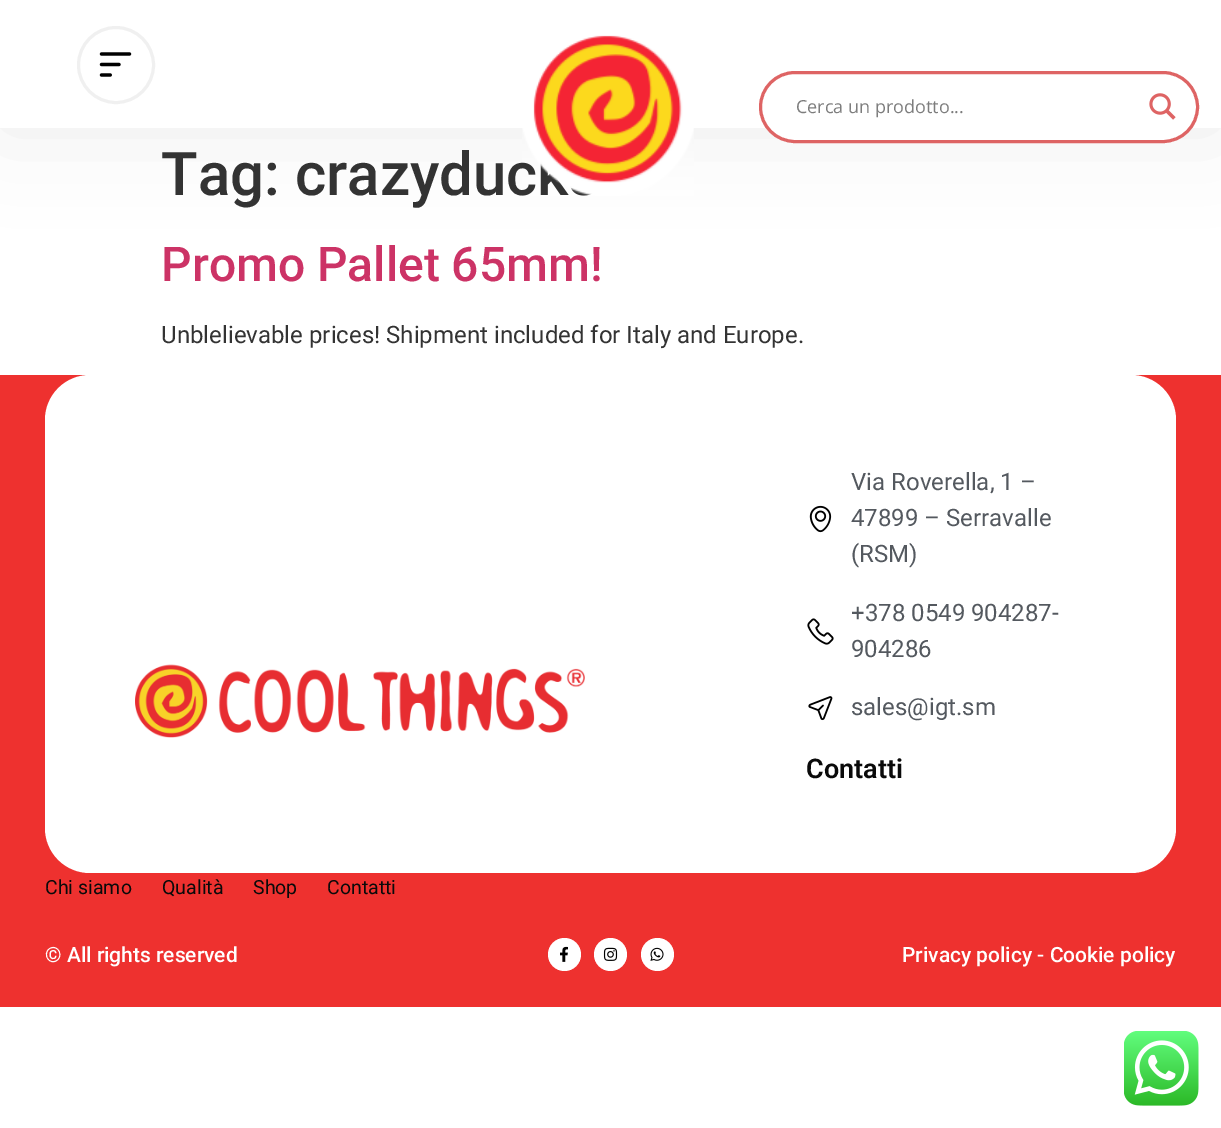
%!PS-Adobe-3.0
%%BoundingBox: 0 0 1221 1128
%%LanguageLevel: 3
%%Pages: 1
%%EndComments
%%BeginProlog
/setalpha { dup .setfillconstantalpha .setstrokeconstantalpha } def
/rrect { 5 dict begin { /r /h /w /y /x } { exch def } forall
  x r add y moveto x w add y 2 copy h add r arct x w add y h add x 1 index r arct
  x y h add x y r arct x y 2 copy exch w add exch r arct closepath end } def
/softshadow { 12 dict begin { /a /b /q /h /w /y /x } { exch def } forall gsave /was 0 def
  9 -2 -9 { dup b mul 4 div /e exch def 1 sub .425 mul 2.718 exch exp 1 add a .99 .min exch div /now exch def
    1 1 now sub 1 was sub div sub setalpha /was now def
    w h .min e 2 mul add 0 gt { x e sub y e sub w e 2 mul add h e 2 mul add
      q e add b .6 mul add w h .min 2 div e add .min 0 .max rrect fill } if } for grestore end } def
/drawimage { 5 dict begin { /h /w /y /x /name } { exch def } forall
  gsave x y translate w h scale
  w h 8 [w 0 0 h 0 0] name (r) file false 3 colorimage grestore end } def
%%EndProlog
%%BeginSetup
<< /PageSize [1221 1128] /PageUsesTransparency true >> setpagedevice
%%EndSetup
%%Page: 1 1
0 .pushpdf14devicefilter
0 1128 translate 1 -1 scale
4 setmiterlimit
1 setgray
0 0 1221 1128 rectfill
0 setgray
0 0 1221 128 0 45 0.07 softshadow
1 setgray
0 0 1221 128 rectfill
0.941 setgray
3 setlinewidth
newpath 116 65 37.5 0 360 arc closepath stroke
(images/1.raw) 99 52 33 25 drawimage
1 setgray
760.5 72.5 437 69 34.5 rrect gsave fill grestore
0.871 0.392 0.392 setrgbcolor
stroke
(images/3.raw) 1149 93 27 27 drawimage
0.933 0.192 0.184 setrgbcolor
0 375 1221 632 rectfill
1 setgray
45 375 1131 498 45 rrect fill
(images/4.raw) 135 664 450 74 drawimage
(images/5.raw) 809 505 23 28 drawimage
(images/6.raw) 807 618 27 27 drawimage
(images/7.raw) 808 696 25 25 drawimage
newpath 564.5 954.5 16.5 0 360 arc closepath fill
(images/8.raw) 560 946 8 16 drawimage
newpath 610.5 954.5 16.5 0 360 arc closepath fill
(images/9.raw) 603 947 15 14 drawimage
newpath 657.5 954.5 16.5 0 360 arc closepath fill
(images/10.raw) 650 947 14 14 drawimage
(images/11.raw) 1124 1031 75 75 drawimage
/OpenSans-Regular [18 0 0 -18 0 0] selectfont
0.49 setgray
796 113 moveto (Cerca un prodotto...) show
/Roboto-Medium [60 0 0 -60 0 0] selectfont
0.2 setgray
161 195 moveto (Tag: crazyduck) show
(images/2.raw) 522 35 172 161 drawimage
/Roboto-Medium [48 0 0 -48 0 0] selectfont
0.8 0.2 0.4 setrgbcolor
161 281 moveto (Promo Pallet 65mm!) show
/Roboto-Regular [24 0 0 -24 0 0] selectfont
0.2 setgray
161 343 moveto (Unblelievable prices! Shipment included for Italy and Europe.) show
0.329 0.349 0.373 setrgbcolor
851 490 moveto (Via Roverella, 1 –) show
851 526 moveto (47899 – Serravalle) show
851 562 moveto (\(RSM\)) show
851 621 moveto (+378 0549 904287-) show
851 657 moveto (904286) show
851 715 moveto (sales@igt.sm) show
/Roboto-SemiBold [27 0 0 -27 0 0] selectfont
0.039 setgray
806 778 moveto (Contatti) show
/Roboto-Regular [19.5 0 0 -19.5 0 0] selectfont
45 894 moveto (Chi siamo) show
162 894 moveto (Qualità) show
253 894 moveto (Shop) show
327 894 moveto (Contatti) show
/Roboto-Medium [21 0 0 -21 0 0] selectfont
1 setgray
45 962 moveto (© All rights reserved) show
902 962 moveto (Privacy policy - Cookie policy) show
.poppdf14devicefilter showpage
%%EOF
